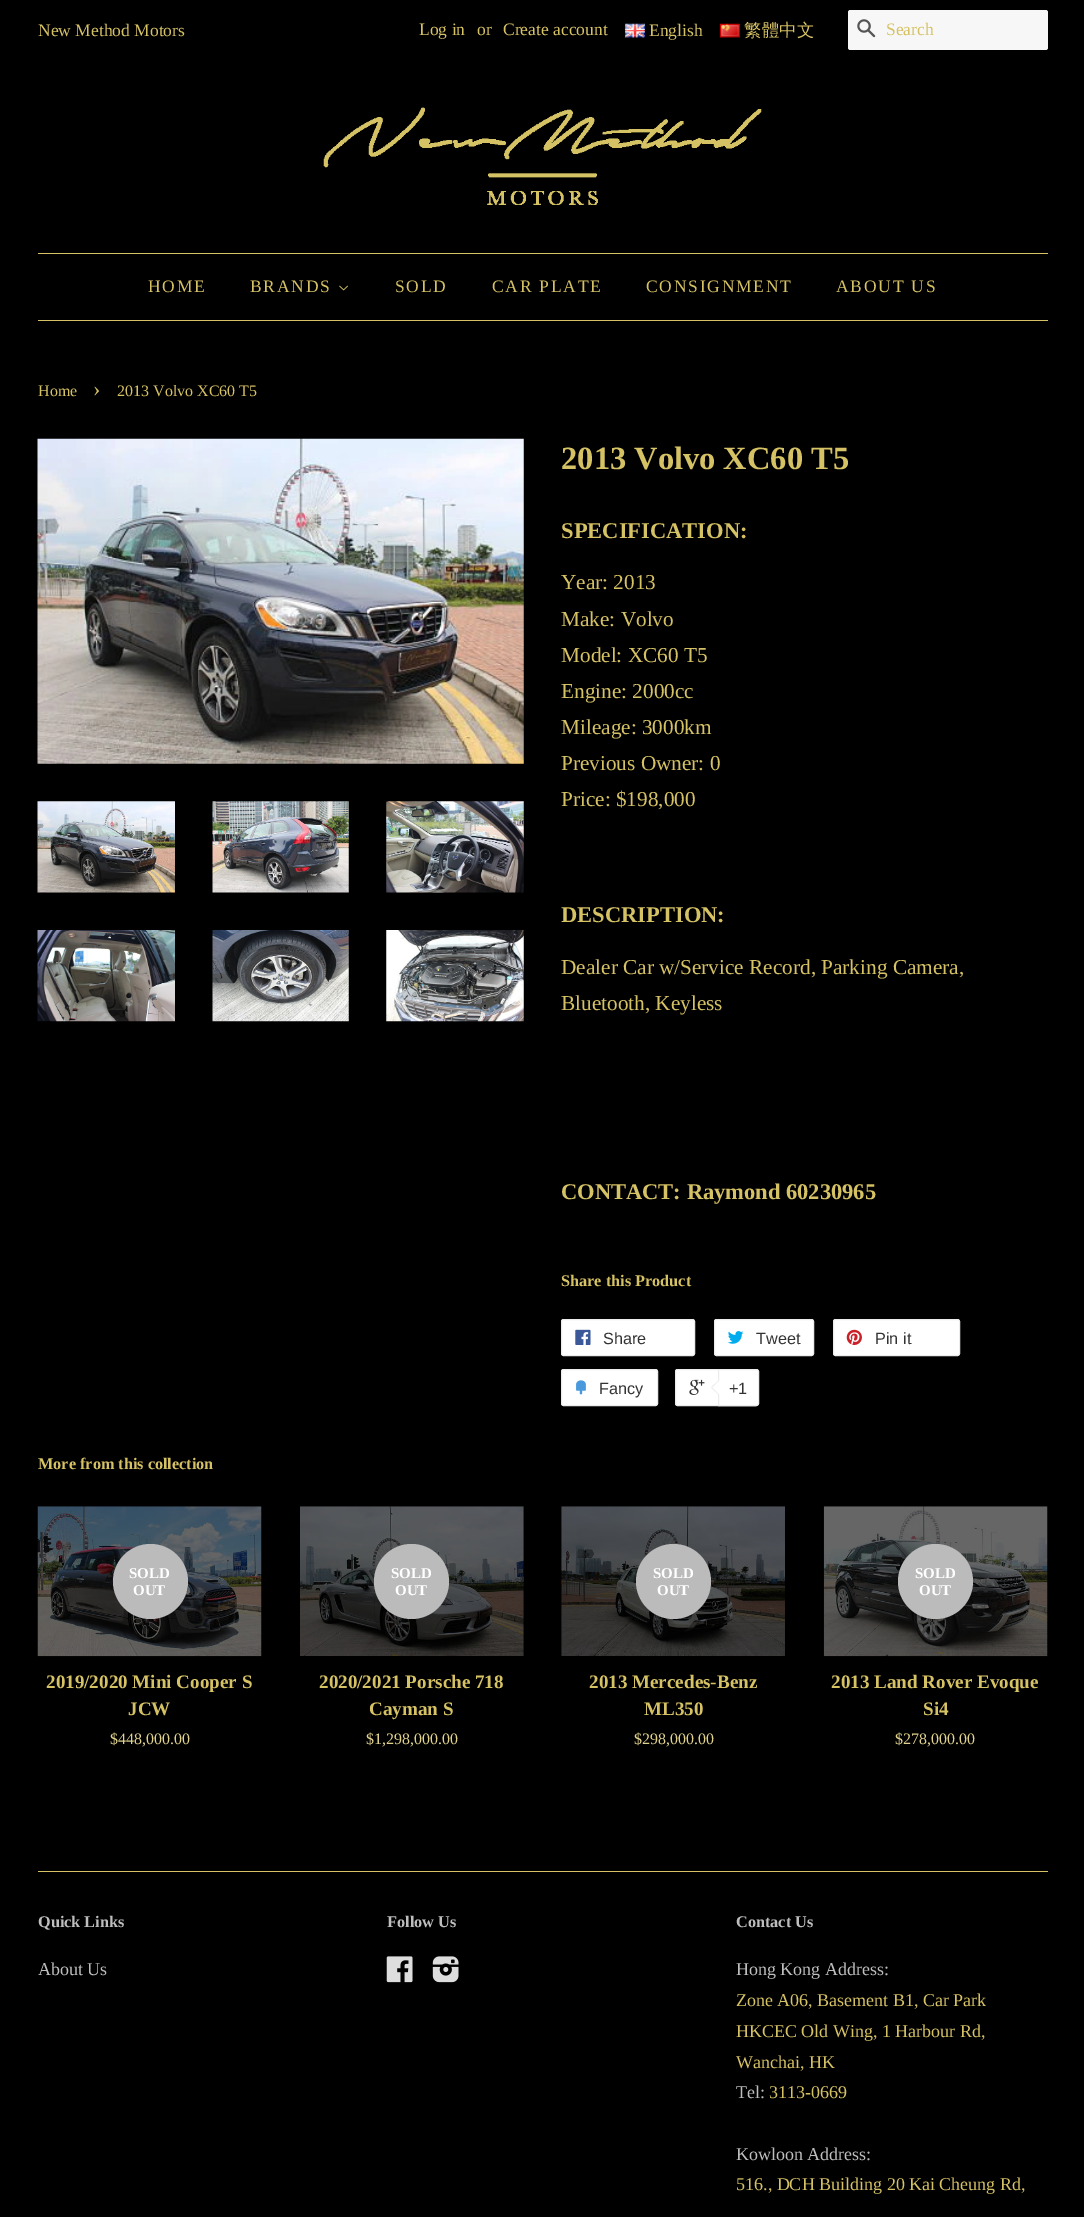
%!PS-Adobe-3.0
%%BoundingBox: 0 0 1084 2217
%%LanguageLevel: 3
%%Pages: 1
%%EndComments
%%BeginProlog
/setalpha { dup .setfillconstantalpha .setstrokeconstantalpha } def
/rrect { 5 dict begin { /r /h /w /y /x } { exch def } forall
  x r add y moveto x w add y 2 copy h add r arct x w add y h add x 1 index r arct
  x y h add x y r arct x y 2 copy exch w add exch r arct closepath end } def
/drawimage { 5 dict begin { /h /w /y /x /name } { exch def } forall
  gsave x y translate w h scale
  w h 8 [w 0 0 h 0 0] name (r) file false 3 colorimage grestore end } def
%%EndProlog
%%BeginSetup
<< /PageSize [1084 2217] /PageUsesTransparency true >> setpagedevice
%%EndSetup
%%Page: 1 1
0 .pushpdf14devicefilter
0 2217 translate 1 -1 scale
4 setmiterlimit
0 setgray
0 0 1084 2217 rectfill
(images/1.raw) 625 23 20 15 drawimage
(images/2.raw) 720 23 20 15 drawimage
1 setgray
848 10 200 40 2.5 rrect fill
0.03 setalpha
0 setgray
848 10 200 40 rectfill
1 setalpha
(images/3.raw) 857 19 19 19 drawimage
(images/4.raw) 323 107 439 98 drawimage
0.835 0.761 0.392 setrgbcolor
38 253 1010 1 rectfill
38 320 1010 1 rectfill
(images/5.raw) 339 285 9 6 drawimage
(images/6.raw) 37 438 487 326 drawimage
(images/7.raw) 37 801 138 92 drawimage
(images/8.raw) 212 801 137 92 drawimage
(images/9.raw) 386 801 138 92 drawimage
(images/10.raw) 37 930 138 92 drawimage
(images/11.raw) 212 930 137 92 drawimage
(images/12.raw) 386 930 138 92 drawimage
1 setgray
561.5 1319.5 133 36 2 rrect gsave fill grestore
0.925 setgray
stroke
(images/13.raw) 575 1329 16 16 drawimage
1 setgray
714.5 1319.5 99 36 2 rrect gsave fill grestore
0.925 setgray
stroke
(images/14.raw) 728 1331 16 13 drawimage
1 setgray
833.5 1319.5 126 36 2 rrect gsave fill grestore
0.925 setgray
stroke
(images/15.raw) 846 1329 16 16 drawimage
1 setgray
561.5 1369.5 96 36 2 rrect gsave fill grestore
0.925 setgray
stroke
(images/16.raw) 576 1380 10 15 drawimage
1 setgray
675.5 1369.5 82 36 2 rrect gsave fill grestore
0.925 setgray
stroke
(images/17.raw) 689 1379 16 16 drawimage
1 setgray
newpath 718.5 1369.5 moveto 756.5 1369.5 lineto 757.5 1369.5 758.5 1370.5 758.5 1371.5 curveto 758.5 1403.5 lineto 758.5 1404.5 757.5 1405.5 756.5 1405.5 curveto 718.5 1405.5 lineto closepath gsave fill grestore
0.925 setgray
stroke
newpath 719 1380 moveto 719 1395 lineto 711 1387.5 lineto closepath fill
1 setgray
newpath 720 1380 moveto 720 1395 lineto 712.5 1387.5 lineto closepath fill
(images/18.raw) 37 1506 225 151 drawimage
0.733 setgray
newpath 150.5 1581.5 37.5 0 360 arc closepath fill
(images/19.raw) 300 1506 224 150 drawimage
newpath 411.5 1581.5 37.5 0 360 arc closepath fill
(images/20.raw) 561 1506 224 150 drawimage
newpath 673.5 1581.5 37.5 0 360 arc closepath fill
(images/21.raw) 823 1506 225 151 drawimage
newpath 935.5 1581.5 37.5 0 360 arc closepath fill
0.835 0.761 0.392 setrgbcolor
38 1871 1010 1 rectfill
(images/22.raw) 386 1956 27 27 drawimage
(images/23.raw) 432 1956 27 27 drawimage
/LiberationSerif-Regular [17.5 0 0 -17.5 0 0] selectfont
38 36 moveto (New Method Motors) show
419 35 moveto (Log in) show
477 35 moveto (or) show
503 35 moveto (Create account) show
649 36 moveto (English) show
/WenQuanYiZenHei-Medium [17.5 0 0 -17.5 0 0] selectfont
744 36 moveto (繁體中文) show
/LiberationSerif-Regular [17.5 0 0 -17.5 0 0] selectfont
886 35 moveto (Search) show
148 292 moveto 1.75 0 (HOME) ashow
250 292 moveto 1.75 0 (BRANDS) ashow
395 292 moveto 1.75 0 (SOLD) ashow
492 292 moveto 1.75 0 (CAR PLATE) ashow
646 292 moveto 1.75 0 (CONSIGNMENT) ashow
836 292 moveto 1.75 0 (ABOUT US) ashow
/LiberationSerif-Regular [16 0 0 -16 0 0] selectfont
38 396 moveto (Home) show
/LiberationSerif-Regular [22 0 0 -22 0 0] selectfont
93 396 moveto (›) show
/LiberationSerif-Regular [16 0 0 -16 0 0] selectfont
117 396 moveto (2013 Volvo XC60 T5) show
/LiberationSerif-Bold [32.5 0 0 -32.5 0 0] selectfont
561 469 moveto (2013 Volvo XC60 T5) show
/LiberationSerif-Bold [22.5 0 0 -22.5 0 0] selectfont
561 538 moveto (SPECIFICATION:) show
/LiberationSerif-Regular [21.25 0 0 -21.25 0 0] selectfont
561 589 moveto (Year: 2013) show
561 626 moveto (Make: Volvo) show
561 662 moveto (Model: XC60 T5) show
561 698 moveto (Engine: 2000cc) show
561 734 moveto (Mileage: 3000km) show
561 770 moveto (Previous Owner: 0) show
561 806 moveto (Price: $198,000) show
/LiberationSerif-Bold [22.5 0 0 -22.5 0 0] selectfont
561 922 moveto (DESCRIPTION:) show
/LiberationSerif-Regular [21.25 0 0 -21.25 0 0] selectfont
561 974 moveto (Dealer Car w/Service Record, Parking Camera,) show
561 1010 moveto (Bluetooth, Keyless) show
/LiberationSerif-Bold [22.5 0 0 -22.5 0 0] selectfont
561 1199 moveto (CONTACT: Raymond 60230965) show
/LiberationSerif-Bold [16.25 0 0 -16.25 0 0] selectfont
561 1286 moveto (Share this Product) show
/LiberationSans-Regular [16.25 0 0 -16.25 0 0] selectfont
0.2 setgray
603 1344 moveto (Share) show
756 1344 moveto (Tweet) show
875 1344 moveto (Pin it) show
599 1394 moveto (Fancy) show
729 1394 moveto (+1) show
/LiberationSerif-Bold [16.25 0 0 -16.25 0 0] selectfont
0.835 0.761 0.392 setrgbcolor
38 1469 moveto (More from this collection) show
/LiberationSerif-Bold [15 0 0 -15 0 0] selectfont
1 setgray
129 1578 moveto (SOLD) show
133 1595 moveto (OUT) show
/LiberationSerif-Bold [19.1 0 0 -19.1 0 0] selectfont
0.835 0.761 0.392 setrgbcolor
46 1688 moveto (2019/2020 Mini Cooper S) show
128 1715 moveto (JCW) show
/LiberationSerif-Regular [16 0 0 -16 0 0] selectfont
0.878 0.824 0.549 setrgbcolor
110 1744 moveto ($448,000.00) show
/LiberationSerif-Bold [15 0 0 -15 0 0] selectfont
1 setgray
391 1578 moveto (SOLD) show
395 1595 moveto (OUT) show
/LiberationSerif-Bold [19.1 0 0 -19.1 0 0] selectfont
0.835 0.761 0.392 setrgbcolor
319 1688 moveto (2020/2021 Porsche 718) show
369 1715 moveto (Cayman S) show
/LiberationSerif-Regular [16 0 0 -16 0 0] selectfont
0.878 0.824 0.549 setrgbcolor
366 1744 moveto ($1,298,000.00) show
/LiberationSerif-Bold [15 0 0 -15 0 0] selectfont
1 setgray
653 1578 moveto (SOLD) show
657 1595 moveto (OUT) show
/LiberationSerif-Bold [19.1 0 0 -19.1 0 0] selectfont
0.835 0.761 0.392 setrgbcolor
589 1688 moveto (2013 Mercedes-Benz) show
644 1715 moveto (ML350) show
/LiberationSerif-Regular [16 0 0 -16 0 0] selectfont
0.878 0.824 0.549 setrgbcolor
634 1744 moveto ($298,000.00) show
/LiberationSerif-Bold [15 0 0 -15 0 0] selectfont
1 setgray
915 1578 moveto (SOLD) show
919 1595 moveto (OUT) show
/LiberationSerif-Bold [19.1 0 0 -19.1 0 0] selectfont
0.835 0.761 0.392 setrgbcolor
831 1688 moveto (2013 Land Rover Evoque) show
923 1715 moveto (Si4) show
/LiberationSerif-Regular [16 0 0 -16 0 0] selectfont
0.878 0.824 0.549 setrgbcolor
895 1744 moveto ($278,000.00) show
/LiberationSerif-Bold [16.25 0 0 -16.25 0 0] selectfont
0.745 setgray
38 1927 moveto (Quick Links) show
/LiberationSerif-Regular [18 0 0 -18 0 0] selectfont
38 1975 moveto (About Us) show
/LiberationSerif-Bold [16.25 0 0 -16.25 0 0] selectfont
387 1927 moveto (Follow Us) show
736 1927 moveto (Contact Us) show
/LiberationSerif-Regular [18 0 0 -18 0 0] selectfont
736 1975 moveto (Hong Kong Address:) show
0.835 0.761 0.392 setrgbcolor
736 2006 moveto (Zone A06, Basement B1, Car Park) show
736 2037 moveto (HKCEC Old Wing, 1 Harbour Rd,) show
736 2068 moveto (Wanchai, HK) show
0.745 setgray
736 2098 moveto (Tel:) show
0.835 0.761 0.392 setrgbcolor
769 2098 moveto (3113-0669) show
0.745 setgray
736 2160 moveto (Kowloon Address:) show
0.835 0.761 0.392 setrgbcolor
736 2190 moveto (516., DCH Building 20 Kai Cheung Rd,) show
.poppdf14devicefilter showpage
%%EOF
